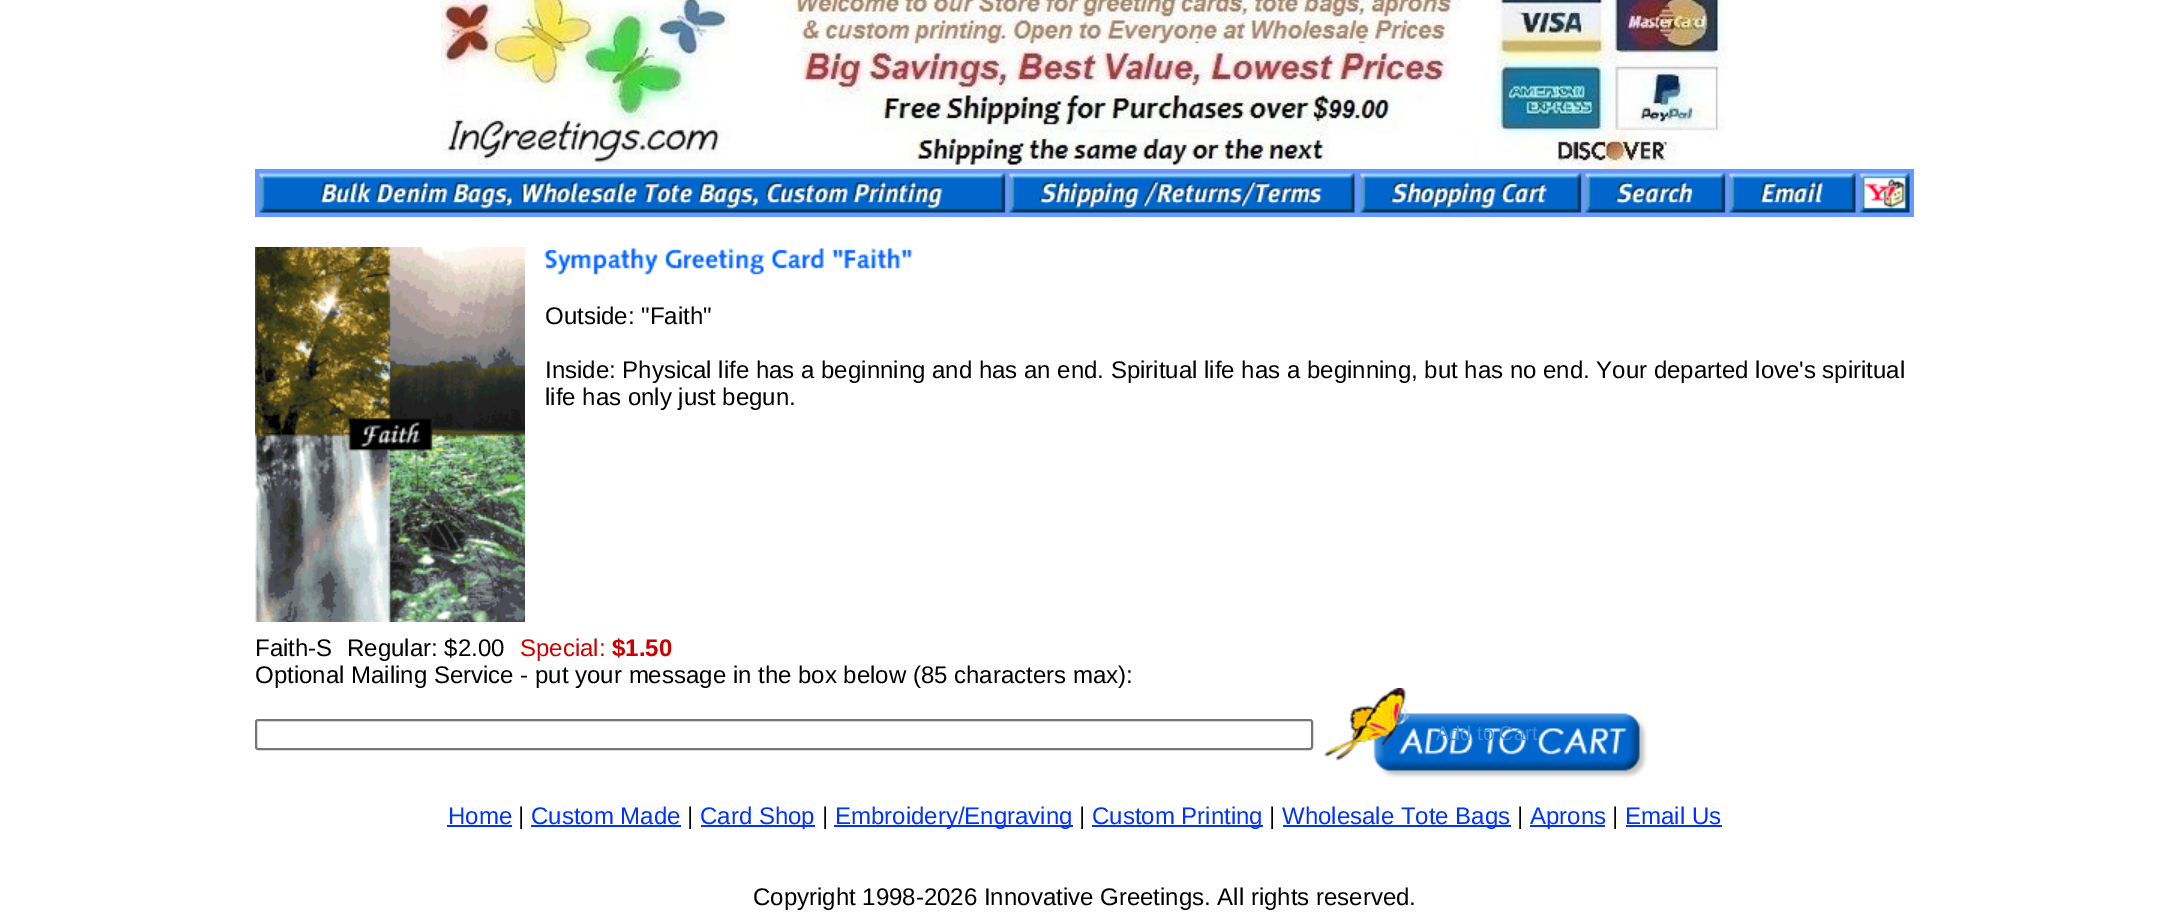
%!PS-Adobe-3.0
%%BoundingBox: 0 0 2168 917
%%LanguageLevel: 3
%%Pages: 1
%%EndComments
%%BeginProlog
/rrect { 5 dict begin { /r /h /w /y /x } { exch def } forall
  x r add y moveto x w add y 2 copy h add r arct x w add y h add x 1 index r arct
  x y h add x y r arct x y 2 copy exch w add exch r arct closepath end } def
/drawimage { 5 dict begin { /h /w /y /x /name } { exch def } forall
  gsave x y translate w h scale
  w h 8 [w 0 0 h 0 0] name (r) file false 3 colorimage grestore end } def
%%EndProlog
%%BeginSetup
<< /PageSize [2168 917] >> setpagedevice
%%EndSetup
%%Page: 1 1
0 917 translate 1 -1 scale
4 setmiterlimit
1 setgray
0 0 2168 917 rectfill
(images/1.raw) 441 0 1287 169 drawimage
(images/2.raw) 255 169 1659 48 drawimage
(images/3.raw) 255 247 270 375 drawimage
(images/4.raw) 544 248 369 27 drawimage
0.463 setgray
2 setlinewidth
256 720 1056 29 2 rrect stroke
(images/5.raw) 1324 688 323 90 drawimage
0 0.2 1 setrgbcolor
447 825 65 2 rectfill
531 825 150 2 rectfill
701 825 114 2 rectfill
834 825 239 2 rectfill
1092 825 171 2 rectfill
1283 825 228 2 rectfill
1530 825 75 2 rectfill
1626 825 96 2 rectfill
/LiberationSans-Regular [24 0 0 -24 0 0] selectfont
0 setgray
545 324 moveto (Outside: "Faith") show
545 378 moveto (Inside: Physical life has a beginning and has an end. Spiritual life has a beginning, but has no end. Your departed love's spiritual) show
545 405 moveto (life has only just begun.) show
255 656 moveto (Faith-S) show
347 656 moveto (Regular: $2.00) show
0.8 0 0 setrgbcolor
520 656 moveto (Special:) show
/LiberationSans-Bold [24 0 0 -24 0 0] selectfont
612 656 moveto ($1.50) show
/LiberationSans-Regular [24 0 0 -24 0 0] selectfont
0 setgray
255 683 moveto (Optional Mailing Service - put your message in the box below \(85 characters max\):) show
/LiberationSans-Regular [20 0 0 -20 0 0] selectfont
0.259 0.557 0.851 setrgbcolor
1436 740 moveto (Add to Cart) show
/LiberationSans-Regular [24 0 0 -24 0 0] selectfont
0 0.2 1 setrgbcolor
448 824 moveto (Home) show
0 setgray
518 824 moveto (|) show
0 0.2 1 setrgbcolor
531 824 moveto (Custom Made) show
0 setgray
687 824 moveto (|) show
0 0.2 1 setrgbcolor
700 824 moveto (Card Shop) show
0 setgray
822 824 moveto (|) show
0 0.2 1 setrgbcolor
835 824 moveto (Embroidery/Engraving) show
0 setgray
1079 824 moveto (|) show
0 0.2 1 setrgbcolor
1092 824 moveto (Custom Printing) show
0 setgray
1269 824 moveto (|) show
0 0.2 1 setrgbcolor
1282 824 moveto (Wholesale Tote Bags) show
0 setgray
1517 824 moveto (|) show
0 0.2 1 setrgbcolor
1530 824 moveto (Aprons) show
0 setgray
1612 824 moveto (|) show
0 0.2 1 setrgbcolor
1625 824 moveto (Email Us) show
0 setgray
753 905 moveto (Copyright 1998-2026 Innovative Greetings. All rights reserved.) show
showpage
%%EOF
